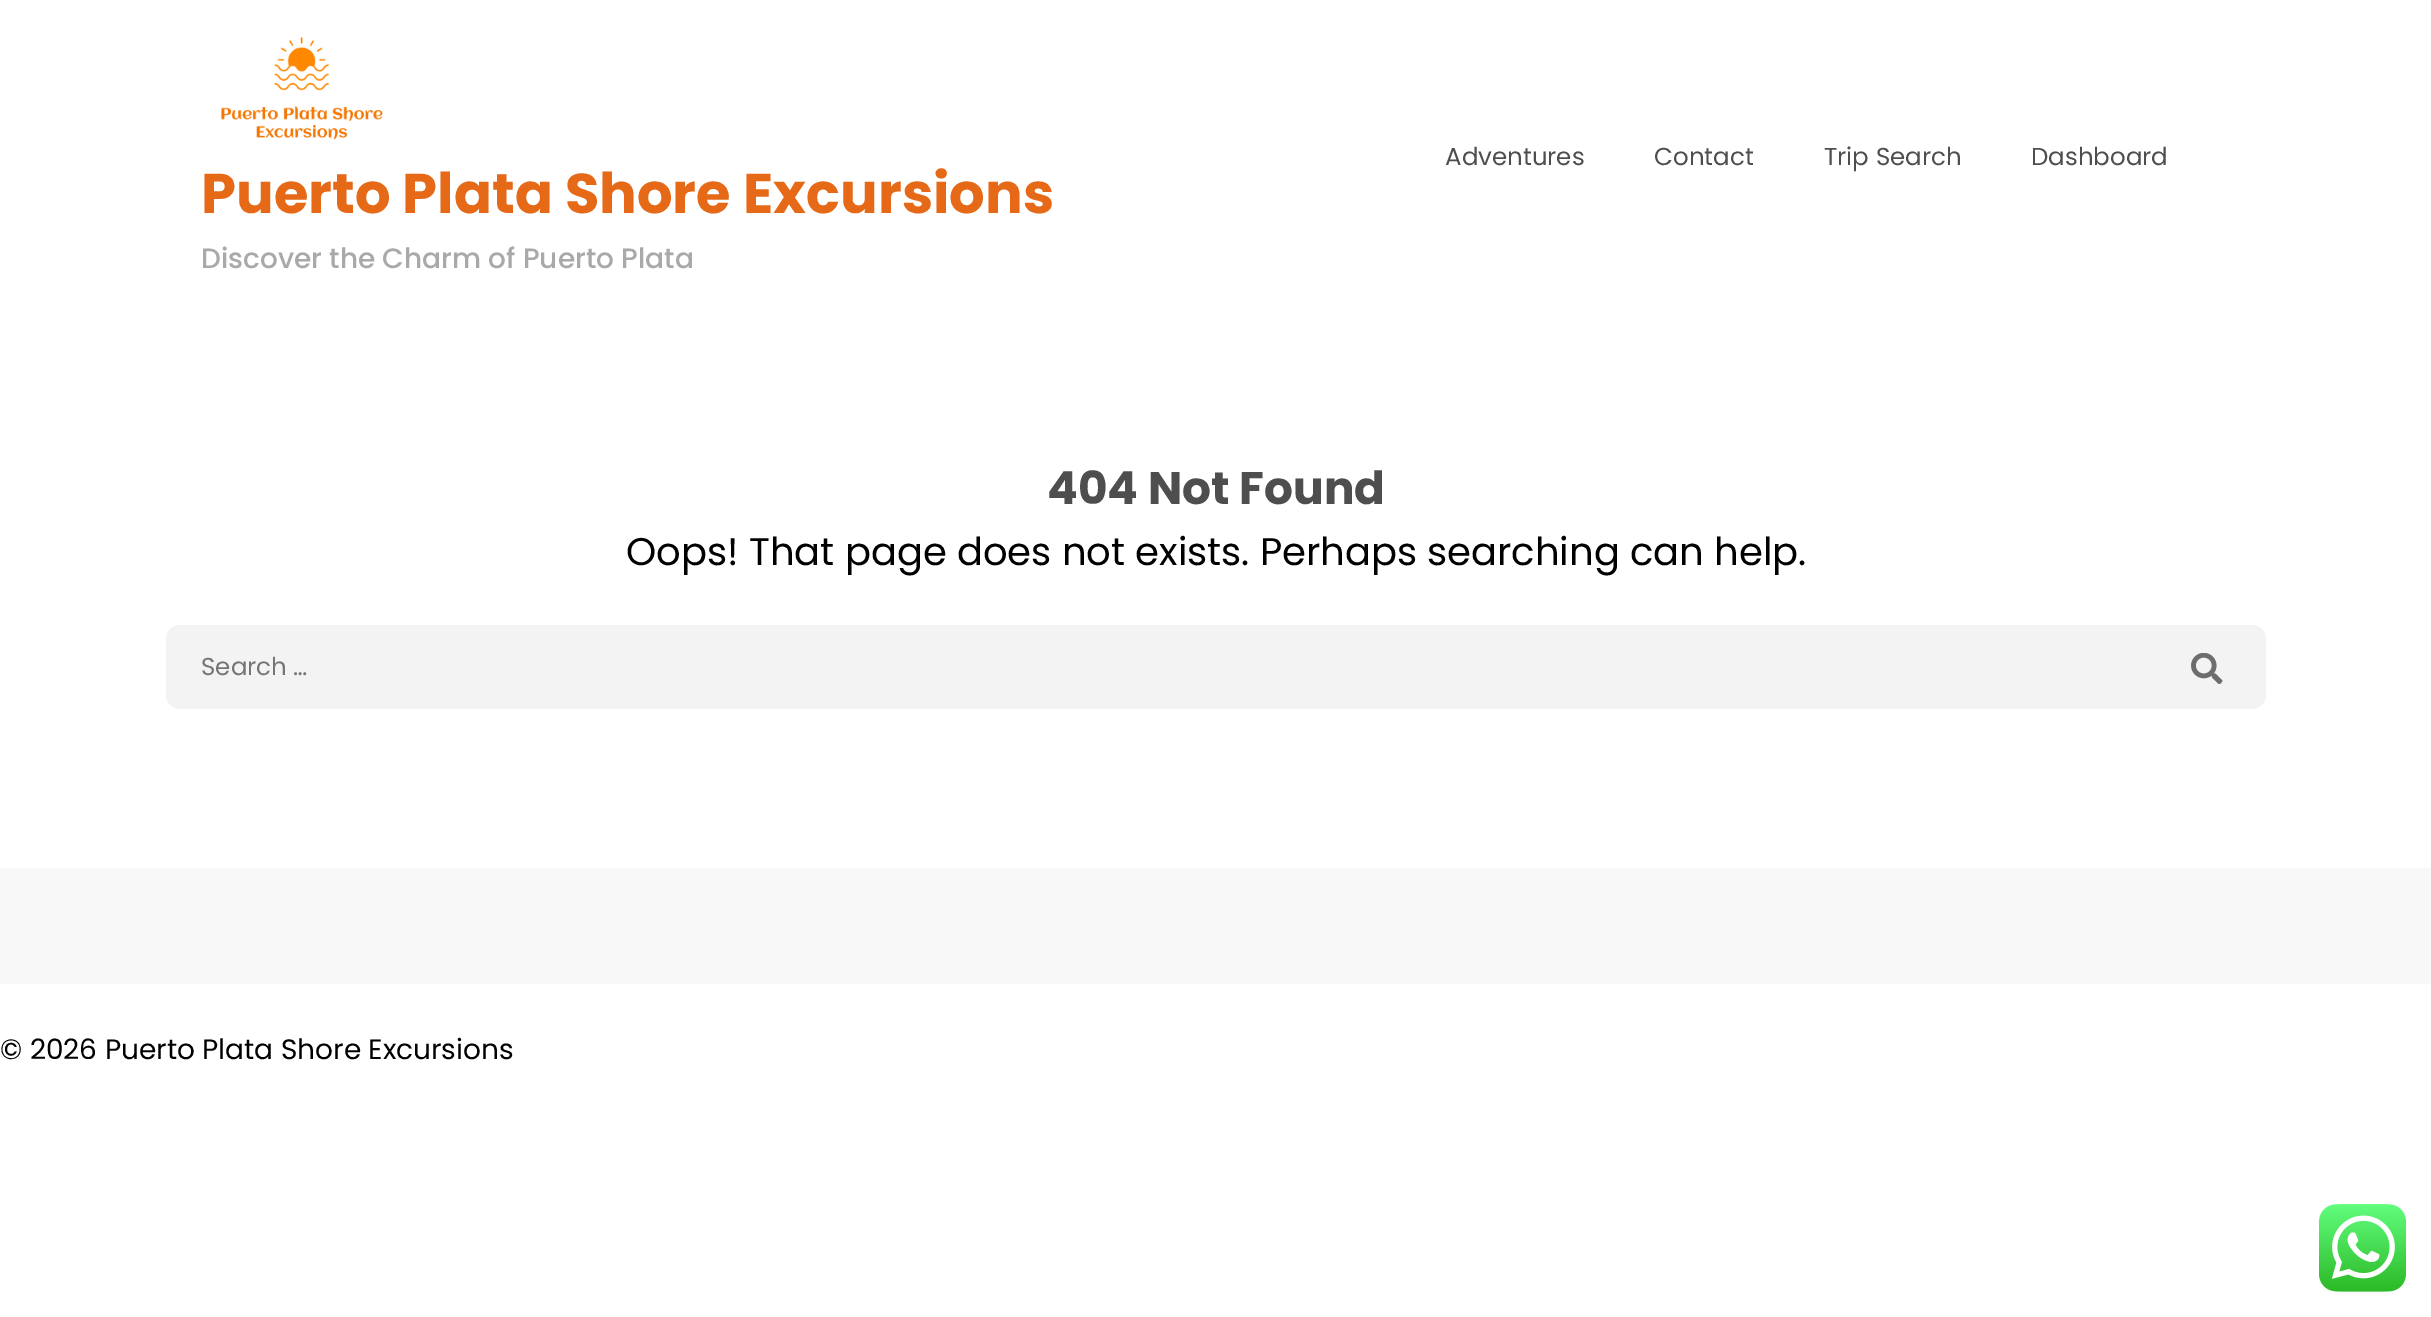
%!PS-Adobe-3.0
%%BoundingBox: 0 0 2431 1317
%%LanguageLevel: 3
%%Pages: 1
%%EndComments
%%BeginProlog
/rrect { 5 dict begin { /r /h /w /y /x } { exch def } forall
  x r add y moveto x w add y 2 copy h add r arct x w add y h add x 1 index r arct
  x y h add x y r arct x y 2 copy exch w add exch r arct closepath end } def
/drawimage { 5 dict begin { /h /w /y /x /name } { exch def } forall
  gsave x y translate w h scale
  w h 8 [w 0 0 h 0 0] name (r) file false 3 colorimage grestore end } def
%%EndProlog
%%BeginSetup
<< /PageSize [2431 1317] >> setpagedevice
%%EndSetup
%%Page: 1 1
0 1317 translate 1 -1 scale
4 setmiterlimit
1 setgray
0 0 2431 1317 rectfill
(images/1.raw) 221 37 162 103 drawimage
0.953 setgray
166 625 2100 84 14 rrect fill
(images/2.raw) 2191 653 32 31 drawimage
0.973 setgray
0 868 2431 116 rectfill
(images/3.raw) 2319 1204 87 88 drawimage
/Poppins-Regular [24.5 0 0 -24.5 0 0] selectfont
0.306 setgray
1445 165 moveto (Adventures) show
1654 165 moveto (Contact) show
1824 165 moveto (Trip Search) show
2031 165 moveto (Dashboard) show
/Poppins-Bold [56 0 0 -56 0 0] selectfont
0.898 0.412 0.086 setrgbcolor
201 213 moveto (Puerto Plata Shore Excursions) show
/Poppins-Medium [28 0 0 -28 0 0] selectfont
0.663 setgray
201 268 moveto (Discover the Charm of Puerto Plata) show
/Poppins-Bold [45.5 0 0 -45.5 0 0] selectfont
0.306 setgray
1047 504 moveto (404 Not Found) show
/Poppins-Regular [38.5 0 0 -38.5 0 0] selectfont
0 setgray
626 565 moveto (Oops! That page does not exists. Perhaps searching can help.) show
/Poppins-Regular [24.5 0 0 -24.5 0 0] selectfont
0.459 setgray
201 675 moveto (Search …) show
/Poppins-Regular [28 0 0 -28 0 0] selectfont
0 setgray
0 1059 moveto (© 2026 Puerto Plata Shore Excursions) show
showpage
%%EOF
